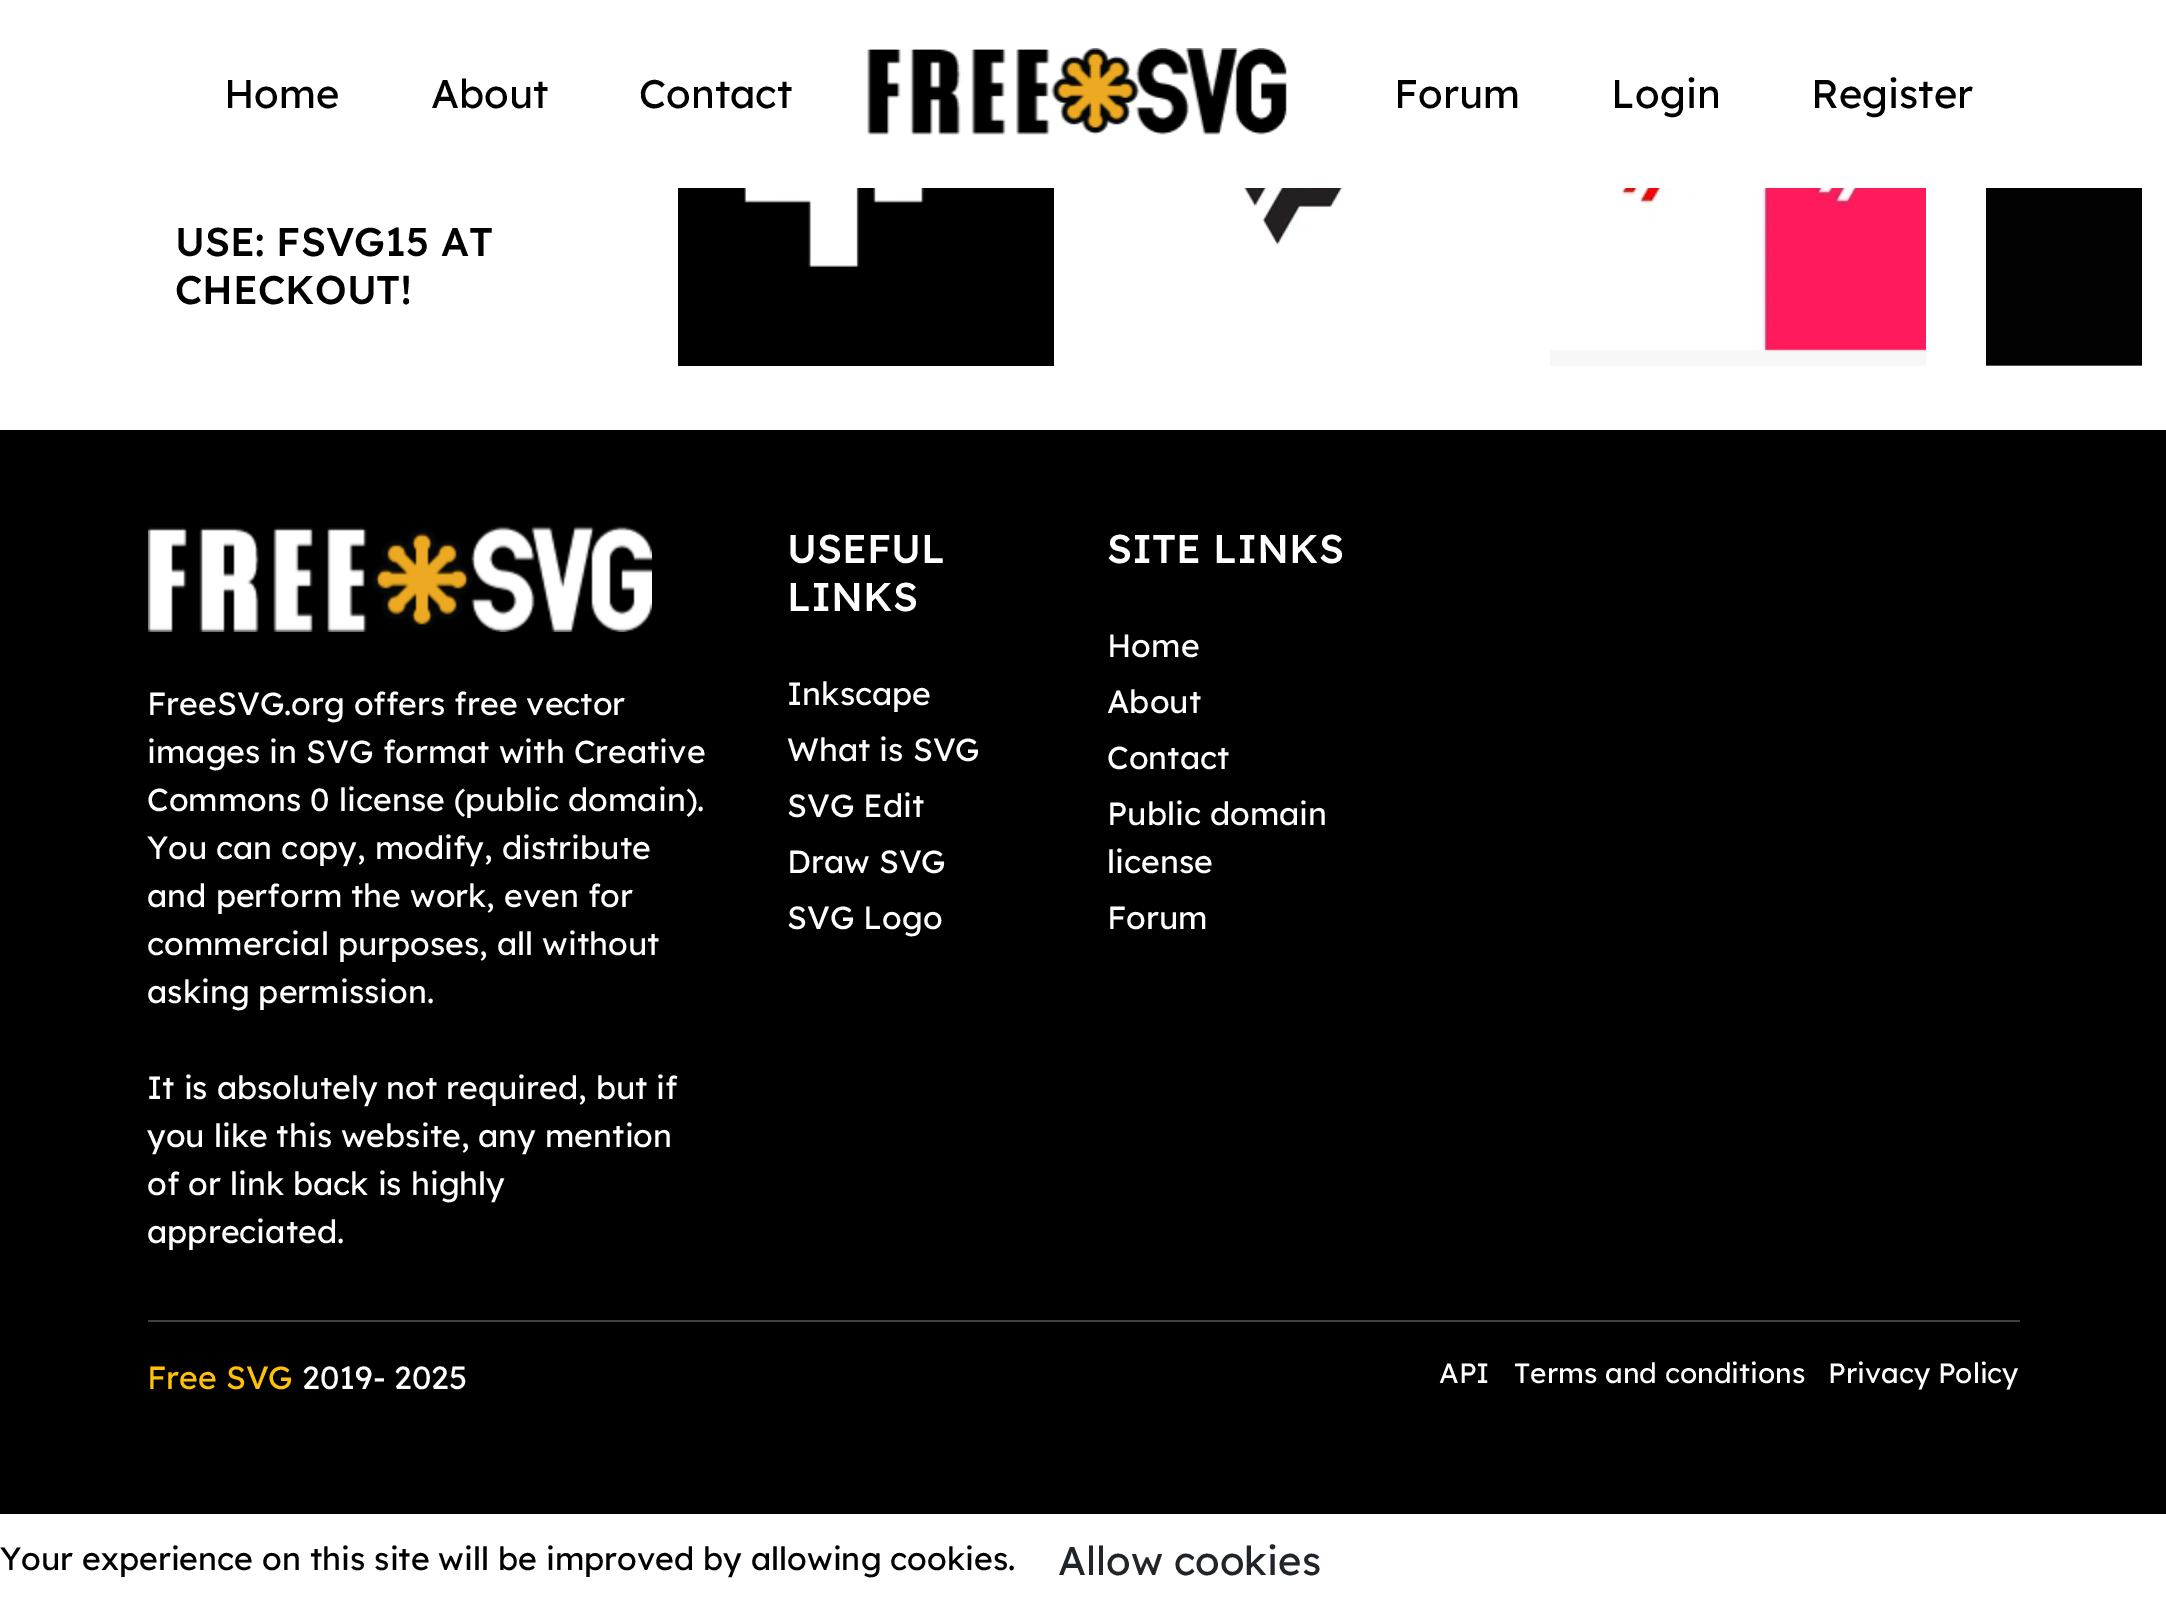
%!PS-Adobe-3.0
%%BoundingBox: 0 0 2166 1609
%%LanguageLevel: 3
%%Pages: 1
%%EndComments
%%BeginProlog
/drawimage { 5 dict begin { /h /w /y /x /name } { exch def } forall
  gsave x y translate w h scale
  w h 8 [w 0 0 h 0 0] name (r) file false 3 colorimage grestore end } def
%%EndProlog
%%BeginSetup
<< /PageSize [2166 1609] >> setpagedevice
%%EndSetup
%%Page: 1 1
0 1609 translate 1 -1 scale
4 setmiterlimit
1 setgray
0 0 2166 1609 rectfill
(images/1.raw) 867 48 420 87 drawimage
(images/2.raw) 678 188 376 178 drawimage
(images/3.raw) 1114 188 376 178 drawimage
0.969 setgray
1550 349 376 17 rectfill
(images/4.raw) 1550 188 376 164 drawimage
1986 365 156 1 rectfill
(images/5.raw) 1986 188 156 178 drawimage
0 setgray
0 430 2166 1084 rectfill
(images/6.raw) 148 526 504 106 drawimage
0.251 setgray
148 1320 1872 2 rectfill
/Lexend-Regular [40 0 0 -40 0 0] selectfont
0 setgray
224 108 moveto (Home) show
431 108 moveto (About) show
639 108 moveto (Contact) show
1394 108 moveto (Forum) show
1611 108 moveto (Login) show
1811 108 moveto (Register) show
/Lexend-Medium [40 0 0 -40 0 0] selectfont
175 256 moveto (USE: FSVG15 AT) show
175 304 moveto (CHECKOUT!) show
/Lexend-Regular [32 0 0 -32 0 0] selectfont
1 setgray
147 715 moveto (FreeSVG.org offers free vector) show
147 763 moveto (images in SVG format with Creative) show
147 811 moveto (Commons 0 license \(public domain\).) show
147 859 moveto (You can copy, modify, distribute) show
147 907 moveto (and perform the work, even for) show
147 955 moveto (commercial purposes, all without) show
147 1003 moveto (asking permission.) show
147 1099 moveto (It is absolutely not required, but if) show
147 1147 moveto (you like this website, any mention) show
147 1195 moveto (of or link back is highly) show
147 1243 moveto (appreciated.) show
/Lexend-Medium [40 0 0 -40 0 0] selectfont
787 563 moveto (USEFUL) show
787 611 moveto (LINKS) show
/Lexend-Regular [32 0 0 -32 0 0] selectfont
787 705 moveto (Inkscape) show
787 761 moveto (What is SVG) show
787 817 moveto (SVG Edit) show
787 873 moveto (Draw SVG) show
787 929 moveto (SVG Logo) show
/Lexend-Medium [40 0 0 -40 0 0] selectfont
1107 563 moveto (SITE LINKS) show
/Lexend-Regular [32 0 0 -32 0 0] selectfont
1107 657 moveto (Home) show
1107 713 moveto (About) show
1107 769 moveto (Contact) show
1107 825 moveto (Public domain) show
1107 873 moveto (license) show
1107 929 moveto (Forum) show
1 0.757 0.027 setrgbcolor
147 1389 moveto (Free SVG) show
1 setgray
302 1389 moveto (2019- 2025) show
/Lexend-Regular [28 0 0 -28 0 0] selectfont
1439 1383 moveto (API) show
1514 1383 moveto (Terms and conditions) show
1828 1383 moveto (Privacy Policy) show
/Lexend-Regular [32 0 0 -32 0 0] selectfont
0 setgray
0 1570 moveto (Your experience on this site will be improved by allowing cookies.) show
/Lexend-Regular [40 0 0 -40 0 0] selectfont
0.129 0.145 0.161 setrgbcolor
1058 1575 moveto (Allow cookies) show
showpage
%%EOF
